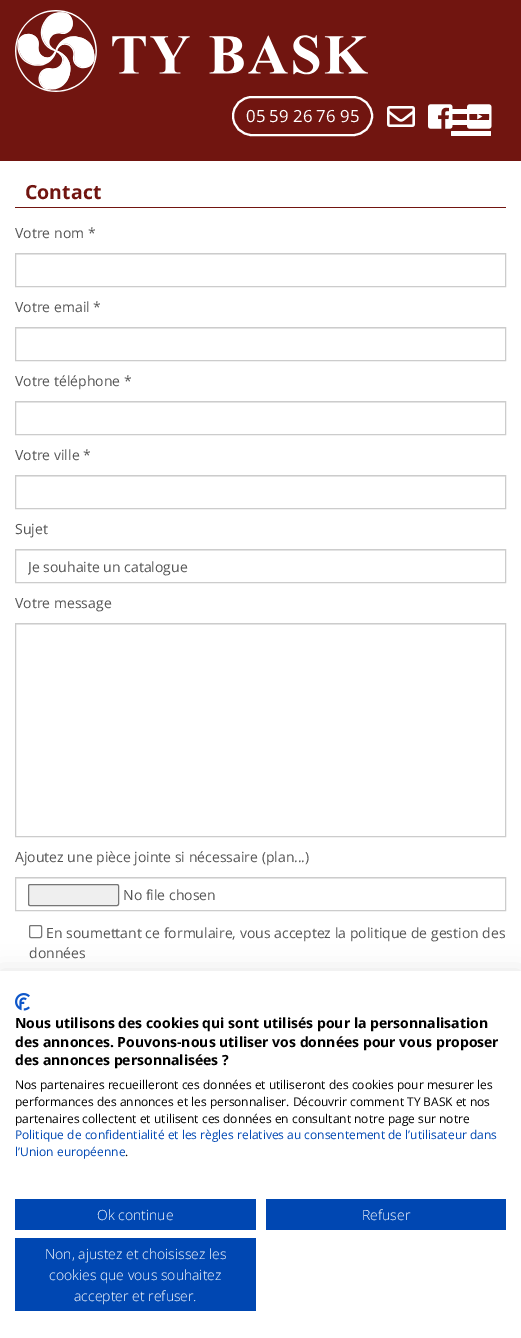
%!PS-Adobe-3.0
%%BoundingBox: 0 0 521 1338
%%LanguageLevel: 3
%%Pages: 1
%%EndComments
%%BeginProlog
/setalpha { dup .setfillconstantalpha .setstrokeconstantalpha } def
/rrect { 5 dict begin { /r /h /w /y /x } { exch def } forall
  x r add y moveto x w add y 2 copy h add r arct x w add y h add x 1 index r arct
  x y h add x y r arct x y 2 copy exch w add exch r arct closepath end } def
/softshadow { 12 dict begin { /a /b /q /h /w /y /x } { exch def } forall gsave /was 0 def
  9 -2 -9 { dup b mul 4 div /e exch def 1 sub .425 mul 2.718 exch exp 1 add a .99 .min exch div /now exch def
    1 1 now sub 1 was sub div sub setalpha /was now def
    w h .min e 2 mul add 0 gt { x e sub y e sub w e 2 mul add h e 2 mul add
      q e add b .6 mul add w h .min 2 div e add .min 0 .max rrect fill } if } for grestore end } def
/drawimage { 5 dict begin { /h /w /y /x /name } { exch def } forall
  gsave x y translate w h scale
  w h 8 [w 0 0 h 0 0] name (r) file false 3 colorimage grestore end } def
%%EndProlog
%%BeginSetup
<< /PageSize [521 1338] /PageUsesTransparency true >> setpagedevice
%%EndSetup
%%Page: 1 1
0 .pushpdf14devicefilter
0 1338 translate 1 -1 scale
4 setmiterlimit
1 setgray
0 0 521 1338 rectfill
0.443 0.082 0.063 setrgbcolor
0 0 521 161 rectfill
(images/1.raw) 15 10 353 82 drawimage
1 setgray
2 setlinewidth
233 97 139 38 19 rrect stroke
(images/2.raw) 387 106 28 21 drawimage
(images/3.raw) 428 104 25 25 drawimage
(images/4.raw) 467 104 25 25 drawimage
451 109 40 5 1 rrect fill
451 120 40 5 1 rrect fill
451 131 40 5 1 rrect fill
0.443 0.082 0.063 setrgbcolor
15 207 491 1 rectfill
0.925 setgray
16 254 489 1 rectfill
0.8 setgray
1 setlinewidth
15.5 253.5 490 33 rectstroke
0.925 setgray
16 328 489 1 rectfill
0.8 setgray
15.5 327.5 490 33 rectstroke
0.925 setgray
16 402 489 1 rectfill
0.8 setgray
15.5 401.5 490 33 rectstroke
0.925 setgray
16 476 489 1 rectfill
0.8 setgray
15.5 475.5 490 33 rectstroke
0.925 setgray
16 550 489 1 rectfill
0.8 setgray
15.5 549.5 490 33 rectstroke
0.925 setgray
16 624 489 1 rectfill
0.8 setgray
15.5 623.5 490 213 rectstroke
0.925 setgray
16 878 489 1 rectfill
0.8 setgray
15.5 877.5 490 33 rectstroke
0.937 setgray
28.5 884.5 90 21 1.5 rrect gsave fill grestore
0.463 setgray
stroke
29.5 925.5 12 12 1.5 rrect stroke
0 setgray
0 971 521 367 0 12 0.1 softshadow
1 setgray
0 971 521 367 rectfill
(images/5.raw) 15 993 15 18 drawimage
0 0.278 0.698 setrgbcolor
15 1199 241 31 rectfill
266 1199 240 31 rectfill
15 1238 241 73 rectfill
/OpenSans-Regular [16.75 0 0 -16.75 0 0] selectfont
1 setgray
246 122 moveto (05 59 26 76 95) show
/OpenSans-Bold [19.5 0 0 -19.5 0 0] selectfont
0.443 0.082 0.063 setrgbcolor
25 199 moveto (Contact) show
/OpenSans-Regular [14 0 0 -14 0 0] selectfont
0.333 setgray
15 238 moveto (Votre nom *) show
15 312 moveto (Votre email *) show
15 386 moveto (Votre téléphone *) show
15 460 moveto (Votre ville *) show
15 534 moveto (Sujet) show
gsave
28 557 465 19 rectclip
28 572 moveto (Je souhaite un catalogue) show
grestore
15 608 moveto (Votre message) show
15 862 moveto (Ajoutez une pièce jointe si nécessaire \(plan...\)) show
123 900 moveto (No file chosen) show
46 938 moveto (En soumettant ce formulaire, vous acceptez la politique de gestion des) show
29 958 moveto (données) show
/OpenSans-Bold [14 0 0 -14 0 0] selectfont
0 setgray
15 1028 moveto (Nous utilisons des cookies qui sont utilisés pour la personnalisation) show
15 1047 moveto (des annonces. Pouvons-nous utiliser vos données pour vous proposer) show
15 1065 moveto (des annonces personnalisées ?) show
/OpenSans-Regular [12 0 0 -12 0 0] selectfont
15 1089 moveto (Nos partenaires recueilleront ces données et utiliseront des cookies pour mesurer les) show
15 1106 moveto (performances des annonces et les personnaliser. Découvrir comment TY BASK et nos) show
15 1123 moveto (partenaires collectent et utilisent ces données en consultant notre page sur notre) show
0 0.278 0.698 setrgbcolor
15 1139 moveto (Politique de confidentialité et les règles relatives au consentement de l’utilisateur dans) show
15 1156 moveto (l’Union européenne) show
0 setgray
125 1156 moveto (.) show
/OpenSans-Light [14 0 0 -14 0 0] selectfont
1 setgray
97 1220 moveto (Ok continue) show
362 1220 moveto (Refuser) show
45 1259 moveto (Non, ajustez et choisissez les) show
49 1280 moveto (cookies que vous souhaitez) show
74 1301 moveto (accepter et refuser.) show
.poppdf14devicefilter showpage
%%EOF
